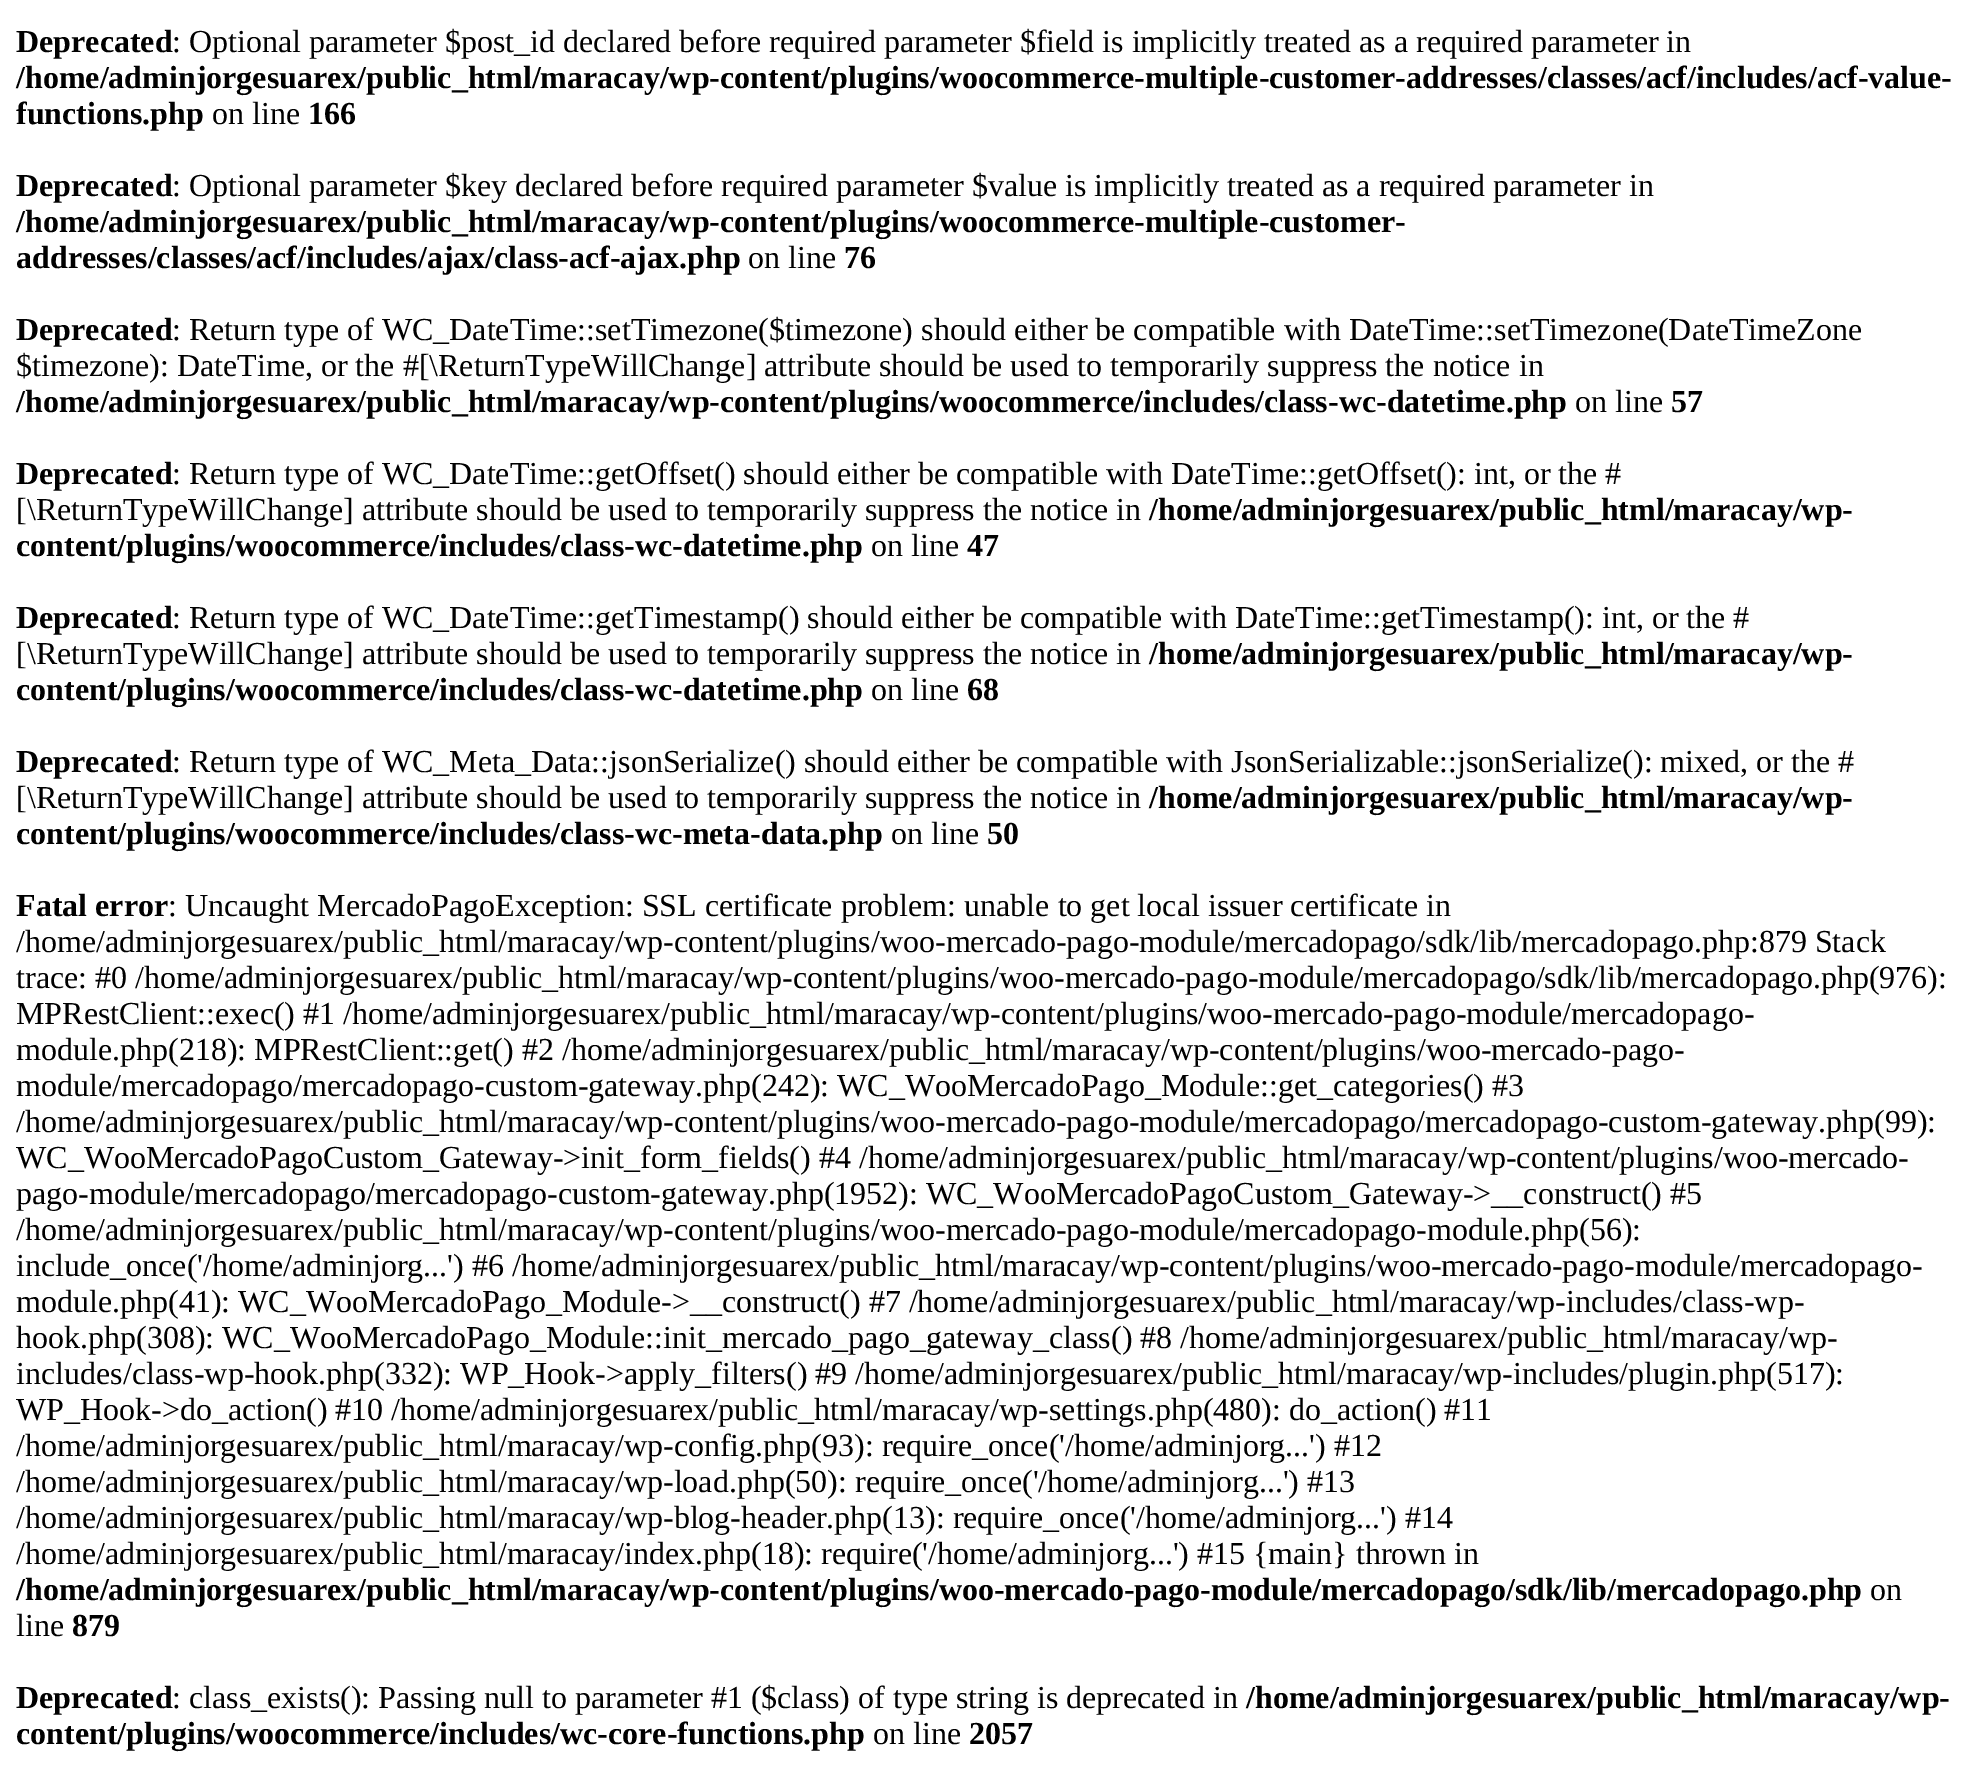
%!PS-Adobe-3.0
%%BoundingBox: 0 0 1967 1768
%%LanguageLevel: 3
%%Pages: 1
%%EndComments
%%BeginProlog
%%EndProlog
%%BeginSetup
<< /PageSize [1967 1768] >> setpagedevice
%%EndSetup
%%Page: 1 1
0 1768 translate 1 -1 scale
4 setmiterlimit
1 setgray
0 0 1967 1768 rectfill
/LiberationSerif-Bold [32 0 0 -32 0 0] selectfont
0 setgray
16 52 moveto (Deprecated) show
/LiberationSerif-Regular [32 0 0 -32 0 0] selectfont
172 52 moveto (: Optional parameter $post_id declared before required parameter $field is implicitly treated as a required parameter in) show
/LiberationSerif-Bold [32 0 0 -32 0 0] selectfont
16 88 moveto (/home/adminjorgesuarex/public_html/maracay/wp-content/plugins/woocommerce-multiple-customer-addresses/classes/acf/includes/acf-value-) show
16 124 moveto (functions.php) show
/LiberationSerif-Regular [32 0 0 -32 0 0] selectfont
212 124 moveto (on line) show
/LiberationSerif-Bold [32 0 0 -32 0 0] selectfont
308 124 moveto (166) show
16 196 moveto (Deprecated) show
/LiberationSerif-Regular [32 0 0 -32 0 0] selectfont
172 196 moveto (: Optional parameter $key declared before required parameter $value is implicitly treated as a required parameter in) show
/LiberationSerif-Bold [32 0 0 -32 0 0] selectfont
16 232 moveto (/home/adminjorgesuarex/public_html/maracay/wp-content/plugins/woocommerce-multiple-customer-) show
16 268 moveto (addresses/classes/acf/includes/ajax/class-acf-ajax.php) show
/LiberationSerif-Regular [32 0 0 -32 0 0] selectfont
748 268 moveto (on line) show
/LiberationSerif-Bold [32 0 0 -32 0 0] selectfont
844 268 moveto (76) show
16 340 moveto (Deprecated) show
/LiberationSerif-Regular [32 0 0 -32 0 0] selectfont
172 340 moveto (: Return type of WC_DateTime::setTimezone\($timezone\) should either be compatible with DateTime::setTimezone\(DateTimeZone) show
16 376 moveto ($timezone\): DateTime, or the #[\\ReturnTypeWillChange] attribute should be used to temporarily suppress the notice in) show
/LiberationSerif-Bold [32 0 0 -32 0 0] selectfont
16 412 moveto (/home/adminjorgesuarex/public_html/maracay/wp-content/plugins/woocommerce/includes/class-wc-datetime.php) show
/LiberationSerif-Regular [32 0 0 -32 0 0] selectfont
1575 412 moveto (on line) show
/LiberationSerif-Bold [32 0 0 -32 0 0] selectfont
1671 412 moveto (57) show
16 484 moveto (Deprecated) show
/LiberationSerif-Regular [32 0 0 -32 0 0] selectfont
172 484 moveto (: Return type of WC_DateTime::getOffset\(\) should either be compatible with DateTime::getOffset\(\): int, or the #) show
16 520 moveto ([\\ReturnTypeWillChange] attribute should be used to temporarily suppress the notice in) show
/LiberationSerif-Bold [32 0 0 -32 0 0] selectfont
1149 520 moveto (/home/adminjorgesuarex/public_html/maracay/wp-) show
16 556 moveto (content/plugins/woocommerce/includes/class-wc-datetime.php) show
/LiberationSerif-Regular [32 0 0 -32 0 0] selectfont
871 556 moveto (on line) show
/LiberationSerif-Bold [32 0 0 -32 0 0] selectfont
967 556 moveto (47) show
16 628 moveto (Deprecated) show
/LiberationSerif-Regular [32 0 0 -32 0 0] selectfont
172 628 moveto (: Return type of WC_DateTime::getTimestamp\(\) should either be compatible with DateTime::getTimestamp\(\): int, or the #) show
16 664 moveto ([\\ReturnTypeWillChange] attribute should be used to temporarily suppress the notice in) show
/LiberationSerif-Bold [32 0 0 -32 0 0] selectfont
1149 664 moveto (/home/adminjorgesuarex/public_html/maracay/wp-) show
16 700 moveto (content/plugins/woocommerce/includes/class-wc-datetime.php) show
/LiberationSerif-Regular [32 0 0 -32 0 0] selectfont
871 700 moveto (on line) show
/LiberationSerif-Bold [32 0 0 -32 0 0] selectfont
967 700 moveto (68) show
16 772 moveto (Deprecated) show
/LiberationSerif-Regular [32 0 0 -32 0 0] selectfont
172 772 moveto (: Return type of WC_Meta_Data::jsonSerialize\(\) should either be compatible with JsonSerializable::jsonSerialize\(\): mixed, or the #) show
16 808 moveto ([\\ReturnTypeWillChange] attribute should be used to temporarily suppress the notice in) show
/LiberationSerif-Bold [32 0 0 -32 0 0] selectfont
1149 808 moveto (/home/adminjorgesuarex/public_html/maracay/wp-) show
16 844 moveto (content/plugins/woocommerce/includes/class-wc-meta-data.php) show
/LiberationSerif-Regular [32 0 0 -32 0 0] selectfont
891 844 moveto (on line) show
/LiberationSerif-Bold [32 0 0 -32 0 0] selectfont
987 844 moveto (50) show
16 916 moveto (Fatal error) show
/LiberationSerif-Regular [32 0 0 -32 0 0] selectfont
168 916 moveto (: Uncaught MercadoPagoException: SSL certificate problem: unable to get local issuer certificate in) show
16 952 moveto (/home/adminjorgesuarex/public_html/maracay/wp-content/plugins/woo-mercado-pago-module/mercadopago/sdk/lib/mercadopago.php:879 Stack) show
16 988 moveto (trace: #0 /home/adminjorgesuarex/public_html/maracay/wp-content/plugins/woo-mercado-pago-module/mercadopago/sdk/lib/mercadopago.php\(976\):) show
16 1024 moveto (MPRestClient::exec\(\) #1 /home/adminjorgesuarex/public_html/maracay/wp-content/plugins/woo-mercado-pago-module/mercadopago-) show
16 1060 moveto (module.php\(218\): MPRestClient::get\(\) #2 /home/adminjorgesuarex/public_html/maracay/wp-content/plugins/woo-mercado-pago-) show
16 1096 moveto (module/mercadopago/mercadopago-custom-gateway.php\(242\): WC_WooMercadoPago_Module::get_categories\(\) #3) show
16 1132 moveto (/home/adminjorgesuarex/public_html/maracay/wp-content/plugins/woo-mercado-pago-module/mercadopago/mercadopago-custom-gateway.php\(99\):) show
16 1168 moveto (WC_WooMercadoPagoCustom_Gateway->init_form_fields\(\) #4 /home/adminjorgesuarex/public_html/maracay/wp-content/plugins/woo-mercado-) show
16 1204 moveto (pago-module/mercadopago/mercadopago-custom-gateway.php\(1952\): WC_WooMercadoPagoCustom_Gateway->__construct\(\) #5) show
16 1240 moveto (/home/adminjorgesuarex/public_html/maracay/wp-content/plugins/woo-mercado-pago-module/mercadopago-module.php\(56\):) show
16 1276 moveto (include_once\('/home/adminjorg...'\) #6 /home/adminjorgesuarex/public_html/maracay/wp-content/plugins/woo-mercado-pago-module/mercadopago-) show
16 1312 moveto (module.php\(41\): WC_WooMercadoPago_Module->__construct\(\) #7 /home/adminjorgesuarex/public_html/maracay/wp-includes/class-wp-) show
16 1348 moveto (hook.php\(308\): WC_WooMercadoPago_Module::init_mercado_pago_gateway_class\(\) #8 /home/adminjorgesuarex/public_html/maracay/wp-) show
16 1384 moveto (includes/class-wp-hook.php\(332\): WP_Hook->apply_filters\(\) #9 /home/adminjorgesuarex/public_html/maracay/wp-includes/plugin.php\(517\):) show
16 1420 moveto (WP_Hook->do_action\(\) #10 /home/adminjorgesuarex/public_html/maracay/wp-settings.php\(480\): do_action\(\) #11) show
16 1456 moveto (/home/adminjorgesuarex/public_html/maracay/wp-config.php\(93\): require_once\('/home/adminjorg...'\) #12) show
16 1492 moveto (/home/adminjorgesuarex/public_html/maracay/wp-load.php\(50\): require_once\('/home/adminjorg...'\) #13) show
16 1528 moveto (/home/adminjorgesuarex/public_html/maracay/wp-blog-header.php\(13\): require_once\('/home/adminjorg...'\) #14) show
16 1564 moveto (/home/adminjorgesuarex/public_html/maracay/index.php\(18\): require\('/home/adminjorg...'\) #15 {main} thrown in) show
/LiberationSerif-Bold [32 0 0 -32 0 0] selectfont
16 1600 moveto (/home/adminjorgesuarex/public_html/maracay/wp-content/plugins/woo-mercado-pago-module/mercadopago/sdk/lib/mercadopago.php) show
/LiberationSerif-Regular [32 0 0 -32 0 0] selectfont
1870 1600 moveto (on) show
16 1636 moveto (line) show
/LiberationSerif-Bold [32 0 0 -32 0 0] selectfont
72 1636 moveto (879) show
16 1708 moveto (Deprecated) show
/LiberationSerif-Regular [32 0 0 -32 0 0] selectfont
172 1708 moveto (: class_exists\(\): Passing null to parameter #1 \($class\) of type string is deprecated in) show
/LiberationSerif-Bold [32 0 0 -32 0 0] selectfont
1246 1708 moveto (/home/adminjorgesuarex/public_html/maracay/wp-) show
16 1744 moveto (content/plugins/woocommerce/includes/wc-core-functions.php) show
/LiberationSerif-Regular [32 0 0 -32 0 0] selectfont
873 1744 moveto (on line) show
/LiberationSerif-Bold [32 0 0 -32 0 0] selectfont
969 1744 moveto (2057) show
showpage
%%EOF
